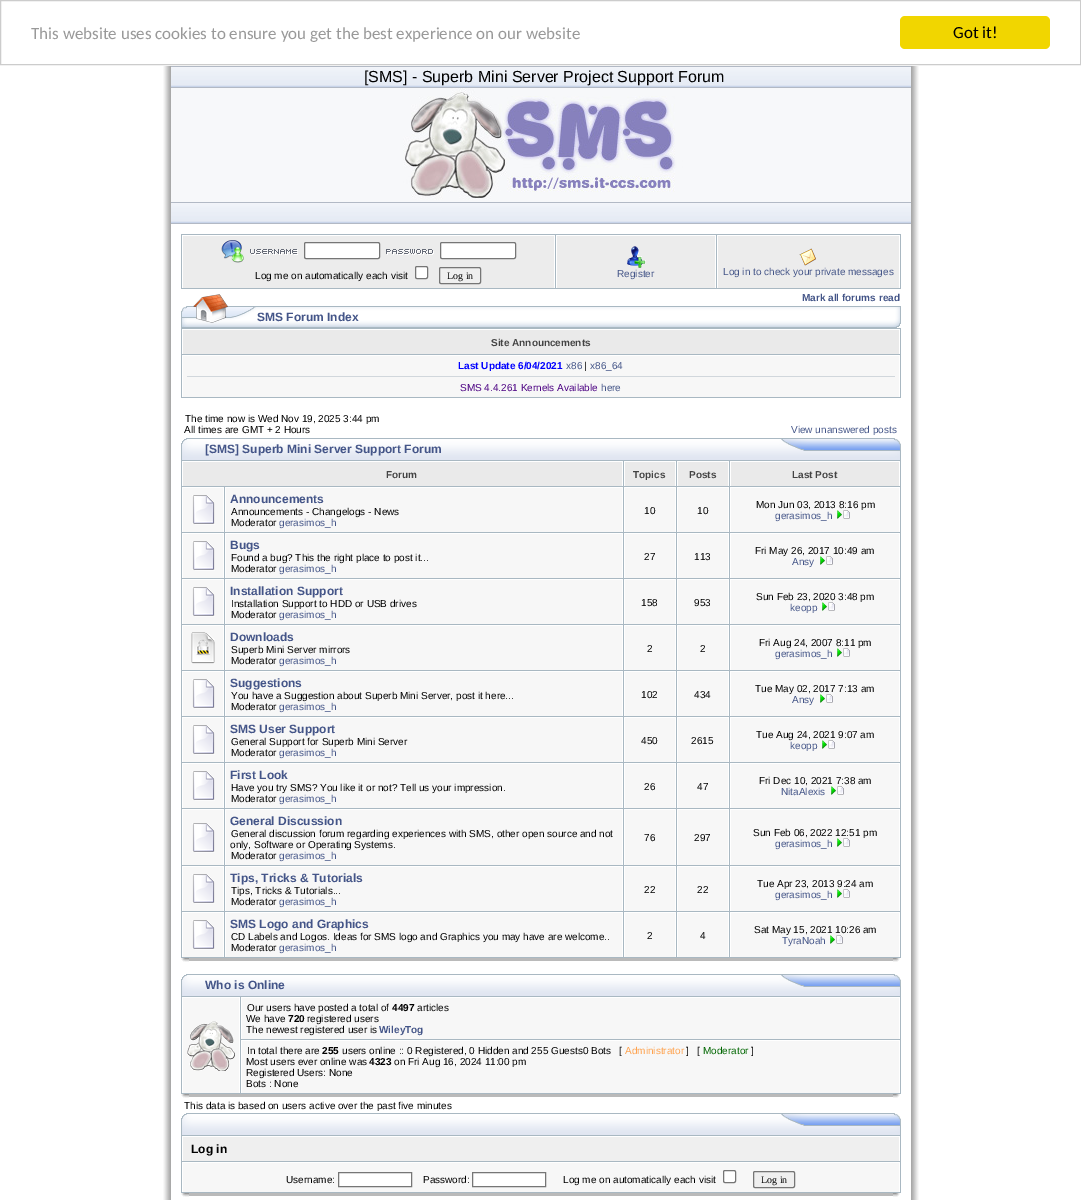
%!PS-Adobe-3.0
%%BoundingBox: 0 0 1081 1200
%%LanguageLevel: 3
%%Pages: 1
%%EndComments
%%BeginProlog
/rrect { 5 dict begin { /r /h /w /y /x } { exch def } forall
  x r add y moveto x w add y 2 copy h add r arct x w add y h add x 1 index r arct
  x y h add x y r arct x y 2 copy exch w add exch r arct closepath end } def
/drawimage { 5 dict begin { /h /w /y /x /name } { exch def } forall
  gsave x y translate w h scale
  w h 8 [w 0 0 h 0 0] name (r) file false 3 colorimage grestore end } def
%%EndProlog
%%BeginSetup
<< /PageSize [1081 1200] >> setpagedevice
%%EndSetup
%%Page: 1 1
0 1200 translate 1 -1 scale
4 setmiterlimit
1 setgray
0 0 1081 1200 rectfill
0.8 setgray
0.5 0.5 1080 64 rectstroke
0.945 0.839 0 setrgbcolor
900 16 150 33 5 rrect fill
(images/1.raw) 163 66 8 1134 drawimage
(images/2.raw) 171 66 740 22 drawimage
(images/3.raw) 171 88 740 114 drawimage
(images/2.raw) 171 202 740 22 drawimage
0.663 0.722 0.761 setrgbcolor
181 234 720 55 rectfill
0.925 setgray
183 236 371 52 rectfill
1 setgray
182 235 373 1 rectfill
554 235 1 53 rectfill
182 235 1 53 rectfill
(images/4.raw) 221 240 23 23 drawimage
(images/5.raw) 250 249 48 6 drawimage
304.5 242.5 75 16 1.5 rrect gsave fill grestore
0.463 setgray
stroke
(images/6.raw) 386 249 48 6 drawimage
1 setgray
440.5 242.5 75 16 1.5 rrect gsave fill grestore
0.463 setgray
stroke
1 setgray
415.5 266.5 12 12 1.5 rrect gsave fill grestore
0.463 setgray
stroke
0.937 setgray
439.5 267.5 41 16 1.5 rrect gsave fill grestore
0.463 setgray
stroke
0.925 setgray
557 236 158 52 rectfill
1 setgray
556 235 160 1 rectfill
715 235 1 53 rectfill
556 235 1 53 rectfill
(images/7.raw) 627 246 19 22 drawimage
0.925 setgray
718 236 181 52 rectfill
1 setgray
717 235 183 1 rectfill
899 235 1 53 rectfill
717 235 1 53 rectfill
(images/8.raw) 799 248 17 18 drawimage
(images/9.raw) 181 294 76 34 drawimage
(images/10.raw) 257 306 605 22 drawimage
(images/11.raw) 862 306 39 22 drawimage
0.663 0.722 0.761 setrgbcolor
181 328 720 70 rectfill
0.918 setgray
183 330 716 24 rectfill
1 setgray
182 329 718 1 rectfill
899 329 1 25 rectfill
182 329 1 25 rectfill
0.969 setgray
183 356 716 41 rectfill
1 setgray
182 355 718 1 rectfill
899 355 1 42 rectfill
182 355 1 42 rectfill
0.82 0.843 0.863 setrgbcolor
187 376 708 1 rectfill
(images/12.raw) 181 438 22 22 drawimage
(images/13.raw) 203 438 574 22 drawimage
(images/14.raw) 777 438 124 22 drawimage
0.663 0.722 0.761 setrgbcolor
181 460 720 498 rectfill
0.918 setgray
183 462 439 24 rectfill
1 setgray
182 461 441 1 rectfill
622 461 1 25 rectfill
182 461 1 25 rectfill
0.918 setgray
625 462 50 24 rectfill
1 setgray
624 461 52 1 rectfill
675 461 1 25 rectfill
624 461 1 25 rectfill
0.918 setgray
678 462 50 24 rectfill
1 setgray
677 461 52 1 rectfill
728 461 1 25 rectfill
677 461 1 25 rectfill
0.918 setgray
731 462 168 24 rectfill
1 setgray
730 461 170 1 rectfill
899 461 1 25 rectfill
730 461 1 25 rectfill
0.969 setgray
183 488 40 44 rectfill
1 setgray
182 487 42 1 rectfill
223 487 1 45 rectfill
182 487 1 45 rectfill
(images/15.raw) 192 495 23 30 drawimage
0.969 setgray
226 488 396 44 rectfill
1 setgray
225 487 398 1 rectfill
622 487 1 45 rectfill
225 487 1 45 rectfill
0.969 setgray
625 488 50 44 rectfill
1 setgray
624 487 52 1 rectfill
675 487 1 45 rectfill
624 487 1 45 rectfill
0.969 setgray
678 488 50 44 rectfill
1 setgray
677 487 52 1 rectfill
728 487 1 45 rectfill
677 487 1 45 rectfill
0.969 setgray
731 488 168 44 rectfill
1 setgray
730 487 170 1 rectfill
899 487 1 45 rectfill
730 487 1 45 rectfill
0.969 setgray
183 534 40 44 rectfill
1 setgray
182 533 42 1 rectfill
223 533 1 45 rectfill
182 533 1 45 rectfill
(images/15.raw) 192 541 23 30 drawimage
0.969 setgray
226 534 396 44 rectfill
1 setgray
225 533 398 1 rectfill
622 533 1 45 rectfill
225 533 1 45 rectfill
0.969 setgray
625 534 50 44 rectfill
1 setgray
624 533 52 1 rectfill
675 533 1 45 rectfill
624 533 1 45 rectfill
0.969 setgray
678 534 50 44 rectfill
1 setgray
677 533 52 1 rectfill
728 533 1 45 rectfill
677 533 1 45 rectfill
0.969 setgray
731 534 168 44 rectfill
1 setgray
730 533 170 1 rectfill
899 533 1 45 rectfill
730 533 1 45 rectfill
0.969 setgray
183 580 40 44 rectfill
1 setgray
182 579 42 1 rectfill
223 579 1 45 rectfill
182 579 1 45 rectfill
(images/15.raw) 192 587 23 30 drawimage
0.969 setgray
226 580 396 44 rectfill
1 setgray
225 579 398 1 rectfill
622 579 1 45 rectfill
225 579 1 45 rectfill
0.969 setgray
625 580 50 44 rectfill
1 setgray
624 579 52 1 rectfill
675 579 1 45 rectfill
624 579 1 45 rectfill
0.969 setgray
678 580 50 44 rectfill
1 setgray
677 579 52 1 rectfill
728 579 1 45 rectfill
677 579 1 45 rectfill
0.969 setgray
731 580 168 44 rectfill
1 setgray
730 579 170 1 rectfill
899 579 1 45 rectfill
730 579 1 45 rectfill
0.969 setgray
183 626 40 44 rectfill
1 setgray
182 625 42 1 rectfill
223 625 1 45 rectfill
182 625 1 45 rectfill
(images/17.raw) 191 632 24 32 drawimage
0.969 setgray
226 626 396 44 rectfill
1 setgray
225 625 398 1 rectfill
622 625 1 45 rectfill
225 625 1 45 rectfill
0.969 setgray
625 626 50 44 rectfill
1 setgray
624 625 52 1 rectfill
675 625 1 45 rectfill
624 625 1 45 rectfill
0.969 setgray
678 626 50 44 rectfill
1 setgray
677 625 52 1 rectfill
728 625 1 45 rectfill
677 625 1 45 rectfill
0.969 setgray
731 626 168 44 rectfill
1 setgray
730 625 170 1 rectfill
899 625 1 45 rectfill
730 625 1 45 rectfill
0.969 setgray
183 672 40 44 rectfill
1 setgray
182 671 42 1 rectfill
223 671 1 45 rectfill
182 671 1 45 rectfill
(images/15.raw) 192 679 23 30 drawimage
0.969 setgray
226 672 396 44 rectfill
1 setgray
225 671 398 1 rectfill
622 671 1 45 rectfill
225 671 1 45 rectfill
0.969 setgray
625 672 50 44 rectfill
1 setgray
624 671 52 1 rectfill
675 671 1 45 rectfill
624 671 1 45 rectfill
0.969 setgray
678 672 50 44 rectfill
1 setgray
677 671 52 1 rectfill
728 671 1 45 rectfill
677 671 1 45 rectfill
0.969 setgray
731 672 168 44 rectfill
1 setgray
730 671 170 1 rectfill
899 671 1 45 rectfill
730 671 1 45 rectfill
0.969 setgray
183 718 40 44 rectfill
1 setgray
182 717 42 1 rectfill
223 717 1 45 rectfill
182 717 1 45 rectfill
(images/15.raw) 192 725 23 30 drawimage
0.969 setgray
226 718 396 44 rectfill
1 setgray
225 717 398 1 rectfill
622 717 1 45 rectfill
225 717 1 45 rectfill
0.969 setgray
625 718 50 44 rectfill
1 setgray
624 717 52 1 rectfill
675 717 1 45 rectfill
624 717 1 45 rectfill
0.969 setgray
678 718 50 44 rectfill
1 setgray
677 717 52 1 rectfill
728 717 1 45 rectfill
677 717 1 45 rectfill
0.969 setgray
731 718 168 44 rectfill
1 setgray
730 717 170 1 rectfill
899 717 1 45 rectfill
730 717 1 45 rectfill
0.969 setgray
183 764 40 44 rectfill
1 setgray
182 763 42 1 rectfill
223 763 1 45 rectfill
182 763 1 45 rectfill
(images/15.raw) 192 771 23 30 drawimage
0.969 setgray
226 764 396 44 rectfill
1 setgray
225 763 398 1 rectfill
622 763 1 45 rectfill
225 763 1 45 rectfill
0.969 setgray
625 764 50 44 rectfill
1 setgray
624 763 52 1 rectfill
675 763 1 45 rectfill
624 763 1 45 rectfill
0.969 setgray
678 764 50 44 rectfill
1 setgray
677 763 52 1 rectfill
728 763 1 45 rectfill
677 763 1 45 rectfill
0.969 setgray
731 764 168 44 rectfill
1 setgray
730 763 170 1 rectfill
899 763 1 45 rectfill
730 763 1 45 rectfill
(images/16.raw) 831 786 13 9 drawimage
0.969 setgray
183 810 40 55 rectfill
1 setgray
182 809 42 1 rectfill
223 809 1 56 rectfill
182 809 1 56 rectfill
(images/15.raw) 192 823 23 30 drawimage
0.969 setgray
226 810 396 55 rectfill
1 setgray
225 809 398 1 rectfill
622 809 1 56 rectfill
225 809 1 56 rectfill
0.969 setgray
625 810 50 55 rectfill
1 setgray
624 809 52 1 rectfill
675 809 1 56 rectfill
624 809 1 56 rectfill
0.969 setgray
678 810 50 55 rectfill
1 setgray
677 809 52 1 rectfill
728 809 1 56 rectfill
677 809 1 56 rectfill
0.969 setgray
731 810 168 55 rectfill
1 setgray
730 809 170 1 rectfill
899 809 1 56 rectfill
730 809 1 56 rectfill
0.969 setgray
183 867 40 44 rectfill
1 setgray
182 866 42 1 rectfill
223 866 1 45 rectfill
182 866 1 45 rectfill
(images/15.raw) 192 874 23 30 drawimage
0.969 setgray
226 867 396 44 rectfill
1 setgray
225 866 398 1 rectfill
622 866 1 45 rectfill
225 866 1 45 rectfill
0.969 setgray
625 867 50 44 rectfill
1 setgray
624 866 52 1 rectfill
675 866 1 45 rectfill
624 866 1 45 rectfill
0.969 setgray
678 867 50 44 rectfill
1 setgray
677 866 52 1 rectfill
728 866 1 45 rectfill
677 866 1 45 rectfill
0.969 setgray
731 867 168 44 rectfill
1 setgray
730 866 170 1 rectfill
899 866 1 45 rectfill
730 866 1 45 rectfill
0.969 setgray
183 913 40 44 rectfill
1 setgray
182 912 42 1 rectfill
223 912 1 45 rectfill
182 912 1 45 rectfill
(images/15.raw) 192 920 23 30 drawimage
0.969 setgray
226 913 396 44 rectfill
1 setgray
225 912 398 1 rectfill
622 912 1 45 rectfill
225 912 1 45 rectfill
0.969 setgray
625 913 50 44 rectfill
1 setgray
624 912 52 1 rectfill
675 912 1 45 rectfill
624 912 1 45 rectfill
0.969 setgray
678 913 50 44 rectfill
1 setgray
677 912 52 1 rectfill
728 912 1 45 rectfill
677 912 1 45 rectfill
0.969 setgray
731 913 168 44 rectfill
1 setgray
730 912 170 1 rectfill
899 912 1 45 rectfill
730 912 1 45 rectfill
(images/18.raw) 181 958 8 4 drawimage
0.729 setgray
189 958 704 3 rectfill
(images/19.raw) 893 958 7 4 drawimage
(images/12.raw) 181 974 22 22 drawimage
(images/13.raw) 203 974 574 22 drawimage
(images/14.raw) 777 974 124 22 drawimage
0.663 0.722 0.761 setrgbcolor
181 996 720 98 rectfill
0.969 setgray
183 998 56 95 rectfill
1 setgray
182 997 58 1 rectfill
239 997 1 96 rectfill
182 997 1 96 rectfill
(images/20.raw) 187 1021 48 50 drawimage
0.969 setgray
242 998 657 41 rectfill
1 setgray
241 997 659 1 rectfill
899 997 1 42 rectfill
241 997 1 42 rectfill
0.969 setgray
242 1041 657 52 rectfill
1 setgray
241 1040 659 1 rectfill
899 1040 1 53 rectfill
241 1040 1 53 rectfill
(images/18.raw) 181 1094 8 4 drawimage
0.729 setgray
189 1094 704 3 rectfill
(images/19.raw) 893 1094 7 4 drawimage
(images/12.raw) 181 1113 22 22 drawimage
(images/13.raw) 203 1113 574 22 drawimage
(images/14.raw) 777 1113 124 22 drawimage
0.663 0.722 0.761 setrgbcolor
181 1135 720 58 rectfill
0.937 setgray
183 1137 716 24 rectfill
1 setgray
182 1136 718 1 rectfill
899 1136 1 25 rectfill
182 1136 1 25 rectfill
0.969 setgray
183 1163 716 29 rectfill
1 setgray
182 1162 718 1 rectfill
899 1162 1 30 rectfill
182 1162 1 30 rectfill
newpath 338.5 1172.5 moveto 411.5 1172.5 lineto 411.5 1186.5 lineto 338.5 1186.5 lineto closepath gsave fill grestore
0.463 setgray
stroke
1 setgray
newpath 472.5 1172.5 moveto 545.5 1172.5 lineto 545.5 1186.5 lineto 472.5 1186.5 lineto closepath gsave fill grestore
0.463 setgray
stroke
1 setgray
723.5 1170.5 12 12 1.5 rrect gsave fill grestore
0.463 setgray
stroke
0.937 setgray
753.5 1171.5 41 16 1.5 rrect gsave fill grestore
0.463 setgray
stroke
(images/18.raw) 181 1193 8 4 drawimage
0.729 setgray
189 1193 704 3 rectfill
(images/19.raw) 893 1193 7 4 drawimage
(images/21.raw) 911 66 8 1134 drawimage
/Carlito-Regular [17 0 0 -17 0 0] selectfont
0.6 setgray
31 39 moveto (This website uses cookies to ensure you get the best experience on our website) show
0 setgray
953 38 moveto (Got it!) show
/LiberationSans-Regular [16 0 0 -16 0 0] selectfont
364 82 moveto ([SMS] - Superb Mini Server Project Support Forum) show
/LiberationSans-Regular [10 0 0 -10 0 0] selectfont
255 279 moveto (Log me on automatically each visit) show
/LiberationSerif-Regular [10 0 0 -10 0 0] selectfont
447 279 moveto (Log in) show
/LiberationSans-Regular [10 0 0 -10 0 0] selectfont
0.267 0.333 0.533 setrgbcolor
617 277 moveto (Register) show
723 275 moveto (Log in to check your private messages) show
/LiberationSans-Bold [10 0 0 -10 0 0] selectfont
802 301 moveto (Mark all forums read) show
/LiberationSans-Bold [12 0 0 -12 0 0] selectfont
257 321 moveto (SMS Forum Index) show
/LiberationSans-Bold [10 0 0 -10 0 0] selectfont
0.267 setgray
491 346 moveto (Site Announcements) show
0 0 1 setrgbcolor
458 369 moveto (Last Update 6/04/2021) show
/LiberationSans-Regular [10 0 0 -10 0 0] selectfont
0.267 0.333 0.533 setrgbcolor
566 369 moveto (x86) show
0 setgray
584 369 moveto (|) show
0.267 0.333 0.533 setrgbcolor
590 369 moveto (x86_64) show
0.294 0 0.51 setrgbcolor
460 391 moveto (SMS 4.4.261 Kernels Available) show
0.267 0.333 0.533 setrgbcolor
601 391 moveto (here) show
0 setgray
185 422 moveto (The time now is Wed Nov 19, 2025 3:44 pm) show
184 433 moveto (All times are GMT + 2 Hours) show
0.267 0.333 0.533 setrgbcolor
791 433 moveto (View unanswered posts) show
/LiberationSans-Bold [12 0 0 -12 0 0] selectfont
205 453 moveto ([SMS] Superb Mini Server Support Forum) show
/LiberationSans-Bold [10 0 0 -10 0 0] selectfont
0.267 setgray
386 478 moveto (Forum) show
633 478 moveto (Topics) show
689 478 moveto (Posts) show
792 478 moveto (Last Post) show
/LiberationSans-Bold [12 0 0 -12 0 0] selectfont
0.267 0.333 0.533 setrgbcolor
230 503 moveto (Announcements) show
/LiberationSans-Regular [10 0 0 -10 0 0] selectfont
0 setgray
231 515 moveto (Announcements - Changelogs - News) show
231 526 moveto (Moderator) show
0.267 0.333 0.533 setrgbcolor
279 526 moveto (gerasimos_h) show
0 setgray
644 514 moveto (10) show
697 514 moveto (10) show
756 508 moveto (Mon Jun 03, 2013 8:16 pm) show
0.267 0.333 0.533 setrgbcolor
775 519 moveto (gerasimos_h) show
(images/16.raw) 837 510 13 9 drawimage
/LiberationSans-Bold [12 0 0 -12 0 0] selectfont
230 549 moveto (Bugs) show
/LiberationSans-Regular [10 0 0 -10 0 0] selectfont
0 setgray
231 561 moveto (Found a bug? This the right place to post it...) show
231 572 moveto (Moderator) show
0.267 0.333 0.533 setrgbcolor
279 572 moveto (gerasimos_h) show
0 setgray
644 560 moveto (27) show
694 560 moveto (113) show
755 554 moveto (Fri May 26, 2017 10:49 am) show
0.267 0.333 0.533 setrgbcolor
792 565 moveto (Ansy) show
(images/16.raw) 820 556 13 9 drawimage
/LiberationSans-Bold [12 0 0 -12 0 0] selectfont
230 595 moveto (Installation Support) show
/LiberationSans-Regular [10 0 0 -10 0 0] selectfont
0 setgray
231 607 moveto (Installation Support to HDD or USB drives) show
231 618 moveto (Moderator) show
0.267 0.333 0.533 setrgbcolor
279 618 moveto (gerasimos_h) show
0 setgray
641 606 moveto (158) show
694 606 moveto (953) show
756 600 moveto (Sun Feb 23, 2020 3:48 pm) show
0.267 0.333 0.533 setrgbcolor
790 611 moveto (keopp) show
(images/16.raw) 822 602 13 9 drawimage
/LiberationSans-Bold [12 0 0 -12 0 0] selectfont
230 641 moveto (Downloads) show
/LiberationSans-Regular [10 0 0 -10 0 0] selectfont
0 setgray
231 653 moveto (Superb Mini Server mirrors) show
231 664 moveto (Moderator) show
0.267 0.333 0.533 setrgbcolor
279 664 moveto (gerasimos_h) show
0 setgray
647 652 moveto (2) show
700 652 moveto (2) show
759 646 moveto (Fri Aug 24, 2007 8:11 pm) show
0.267 0.333 0.533 setrgbcolor
775 657 moveto (gerasimos_h) show
(images/16.raw) 837 648 13 9 drawimage
/LiberationSans-Bold [12 0 0 -12 0 0] selectfont
230 687 moveto (Suggestions) show
/LiberationSans-Regular [10 0 0 -10 0 0] selectfont
0 setgray
231 699 moveto (You have a Suggestion about Superb Mini Server, post it here...) show
231 710 moveto (Moderator) show
0.267 0.333 0.533 setrgbcolor
279 710 moveto (gerasimos_h) show
0 setgray
641 698 moveto (102) show
694 698 moveto (434) show
755 692 moveto (Tue May 02, 2017 7:13 am) show
0.267 0.333 0.533 setrgbcolor
792 703 moveto (Ansy) show
(images/16.raw) 820 694 13 9 drawimage
/LiberationSans-Bold [12 0 0 -12 0 0] selectfont
230 733 moveto (SMS User Support) show
/LiberationSans-Regular [10 0 0 -10 0 0] selectfont
0 setgray
231 745 moveto (General Support for Superb Mini Server) show
231 756 moveto (Moderator) show
0.267 0.333 0.533 setrgbcolor
279 756 moveto (gerasimos_h) show
0 setgray
641 744 moveto (450) show
691 744 moveto (2615) show
756 738 moveto (Tue Aug 24, 2021 9:07 am) show
0.267 0.333 0.533 setrgbcolor
790 749 moveto (keopp) show
(images/16.raw) 822 740 13 9 drawimage
/LiberationSans-Bold [12 0 0 -12 0 0] selectfont
230 779 moveto (First Look) show
/LiberationSans-Regular [10 0 0 -10 0 0] selectfont
0 setgray
231 791 moveto (Have you try SMS? You like it or not? Tell us your impression.) show
231 802 moveto (Moderator) show
0.267 0.333 0.533 setrgbcolor
279 802 moveto (gerasimos_h) show
0 setgray
644 790 moveto (26) show
697 790 moveto (47) show
759 784 moveto (Fri Dec 10, 2021 7:38 am) show
0.267 0.333 0.533 setrgbcolor
781 795 moveto (NitaAlexis) show
/LiberationSans-Bold [12 0 0 -12 0 0] selectfont
230 825 moveto (General Discussion) show
/LiberationSans-Regular [10 0 0 -10 0 0] selectfont
0 setgray
231 837 moveto (General discussion forum regarding experiences with SMS, other open source and not) show
230 848 moveto (only, Software or Operating Systems.) show
231 859 moveto (Moderator) show
0.267 0.333 0.533 setrgbcolor
279 859 moveto (gerasimos_h) show
0 setgray
644 841 moveto (76) show
694 841 moveto (297) show
753 836 moveto (Sun Feb 06, 2022 12:51 pm) show
0.267 0.333 0.533 setrgbcolor
775 847 moveto (gerasimos_h) show
(images/16.raw) 837 838 13 9 drawimage
/LiberationSans-Bold [12 0 0 -12 0 0] selectfont
230 882 moveto (Tips, Tricks & Tutorials) show
/LiberationSans-Regular [10 0 0 -10 0 0] selectfont
0 setgray
231 894 moveto (Tips, Tricks & Tutorials...) show
231 905 moveto (Moderator) show
0.267 0.333 0.533 setrgbcolor
279 905 moveto (gerasimos_h) show
0 setgray
644 893 moveto (22) show
697 893 moveto (22) show
757 887 moveto (Tue Apr 23, 2013 9:24 am) show
0.267 0.333 0.533 setrgbcolor
775 898 moveto (gerasimos_h) show
(images/16.raw) 837 889 13 9 drawimage
/LiberationSans-Bold [12 0 0 -12 0 0] selectfont
230 928 moveto (SMS Logo and Graphics) show
/LiberationSans-Regular [10 0 0 -10 0 0] selectfont
0 setgray
231 940 moveto (CD Labels and Logos. Ideas for SMS logo and Graphics you may have are welcome..) show
231 951 moveto (Moderator) show
0.267 0.333 0.533 setrgbcolor
279 951 moveto (gerasimos_h) show
0 setgray
647 939 moveto (2) show
700 939 moveto (4) show
754 933 moveto (Sat May 15, 2021 10:26 am) show
0.267 0.333 0.533 setrgbcolor
782 944 moveto (TyraNoah) show
(images/16.raw) 830 935 13 9 drawimage
/LiberationSans-Bold [12 0 0 -12 0 0] selectfont
205 989 moveto (Who is Online) show
/LiberationSans-Regular [10 0 0 -10 0 0] selectfont
0 setgray
247 1011 moveto (Our users have posted a total of) show
/LiberationSans-Bold [10 0 0 -10 0 0] selectfont
392 1011 moveto (4497) show
/LiberationSans-Regular [10 0 0 -10 0 0] selectfont
417 1011 moveto (articles) show
246 1022 moveto (We have) show
/LiberationSans-Bold [10 0 0 -10 0 0] selectfont
288 1022 moveto (720) show
/LiberationSans-Regular [10 0 0 -10 0 0] selectfont
307 1022 moveto (registered users) show
246 1033 moveto (The newest registered user is) show
/LiberationSans-Bold [10 0 0 -10 0 0] selectfont
0.267 0.333 0.533 setrgbcolor
379 1033 moveto (WileyTog) show
/LiberationSans-Regular [10 0 0 -10 0 0] selectfont
0 setgray
247 1054 moveto (In total there are) show
/LiberationSans-Bold [10 0 0 -10 0 0] selectfont
322 1054 moveto (255) show
/LiberationSans-Regular [10 0 0 -10 0 0] selectfont
342 1054 moveto (users online :: 0 Registered, 0 Hidden and 255 Guests0 Bots   [) show
1 0.639 0.31 setrgbcolor
625 1054 moveto (Administrator) show
0 setgray
686 1054 moveto (]   [) show
0 0.4 0 setrgbcolor
703 1054 moveto (Moderator) show
0 setgray
751 1054 moveto (]) show
246 1065 moveto (Most users ever online was) show
/LiberationSans-Bold [10 0 0 -10 0 0] selectfont
369 1065 moveto (4323) show
/LiberationSans-Regular [10 0 0 -10 0 0] selectfont
394 1065 moveto (on Fri Aug 16, 2024 11:00 pm) show
246 1076 moveto (Registered Users: None) show
246 1087 moveto (Bots : None) show
184 1109 moveto (This data is based on users active over the past five minutes) show
/LiberationSans-Bold [12 0 0 -12 0 0] selectfont
191 1153 moveto (Log in) show
/LiberationSans-Regular [10 0 0 -10 0 0] selectfont
286 1183 moveto (Username:) show
423 1183 moveto (Password:) show
563 1183 moveto (Log me on automatically each visit) show
/LiberationSerif-Regular [10 0 0 -10 0 0] selectfont
761 1183 moveto (Log in) show
showpage
%%EOF
